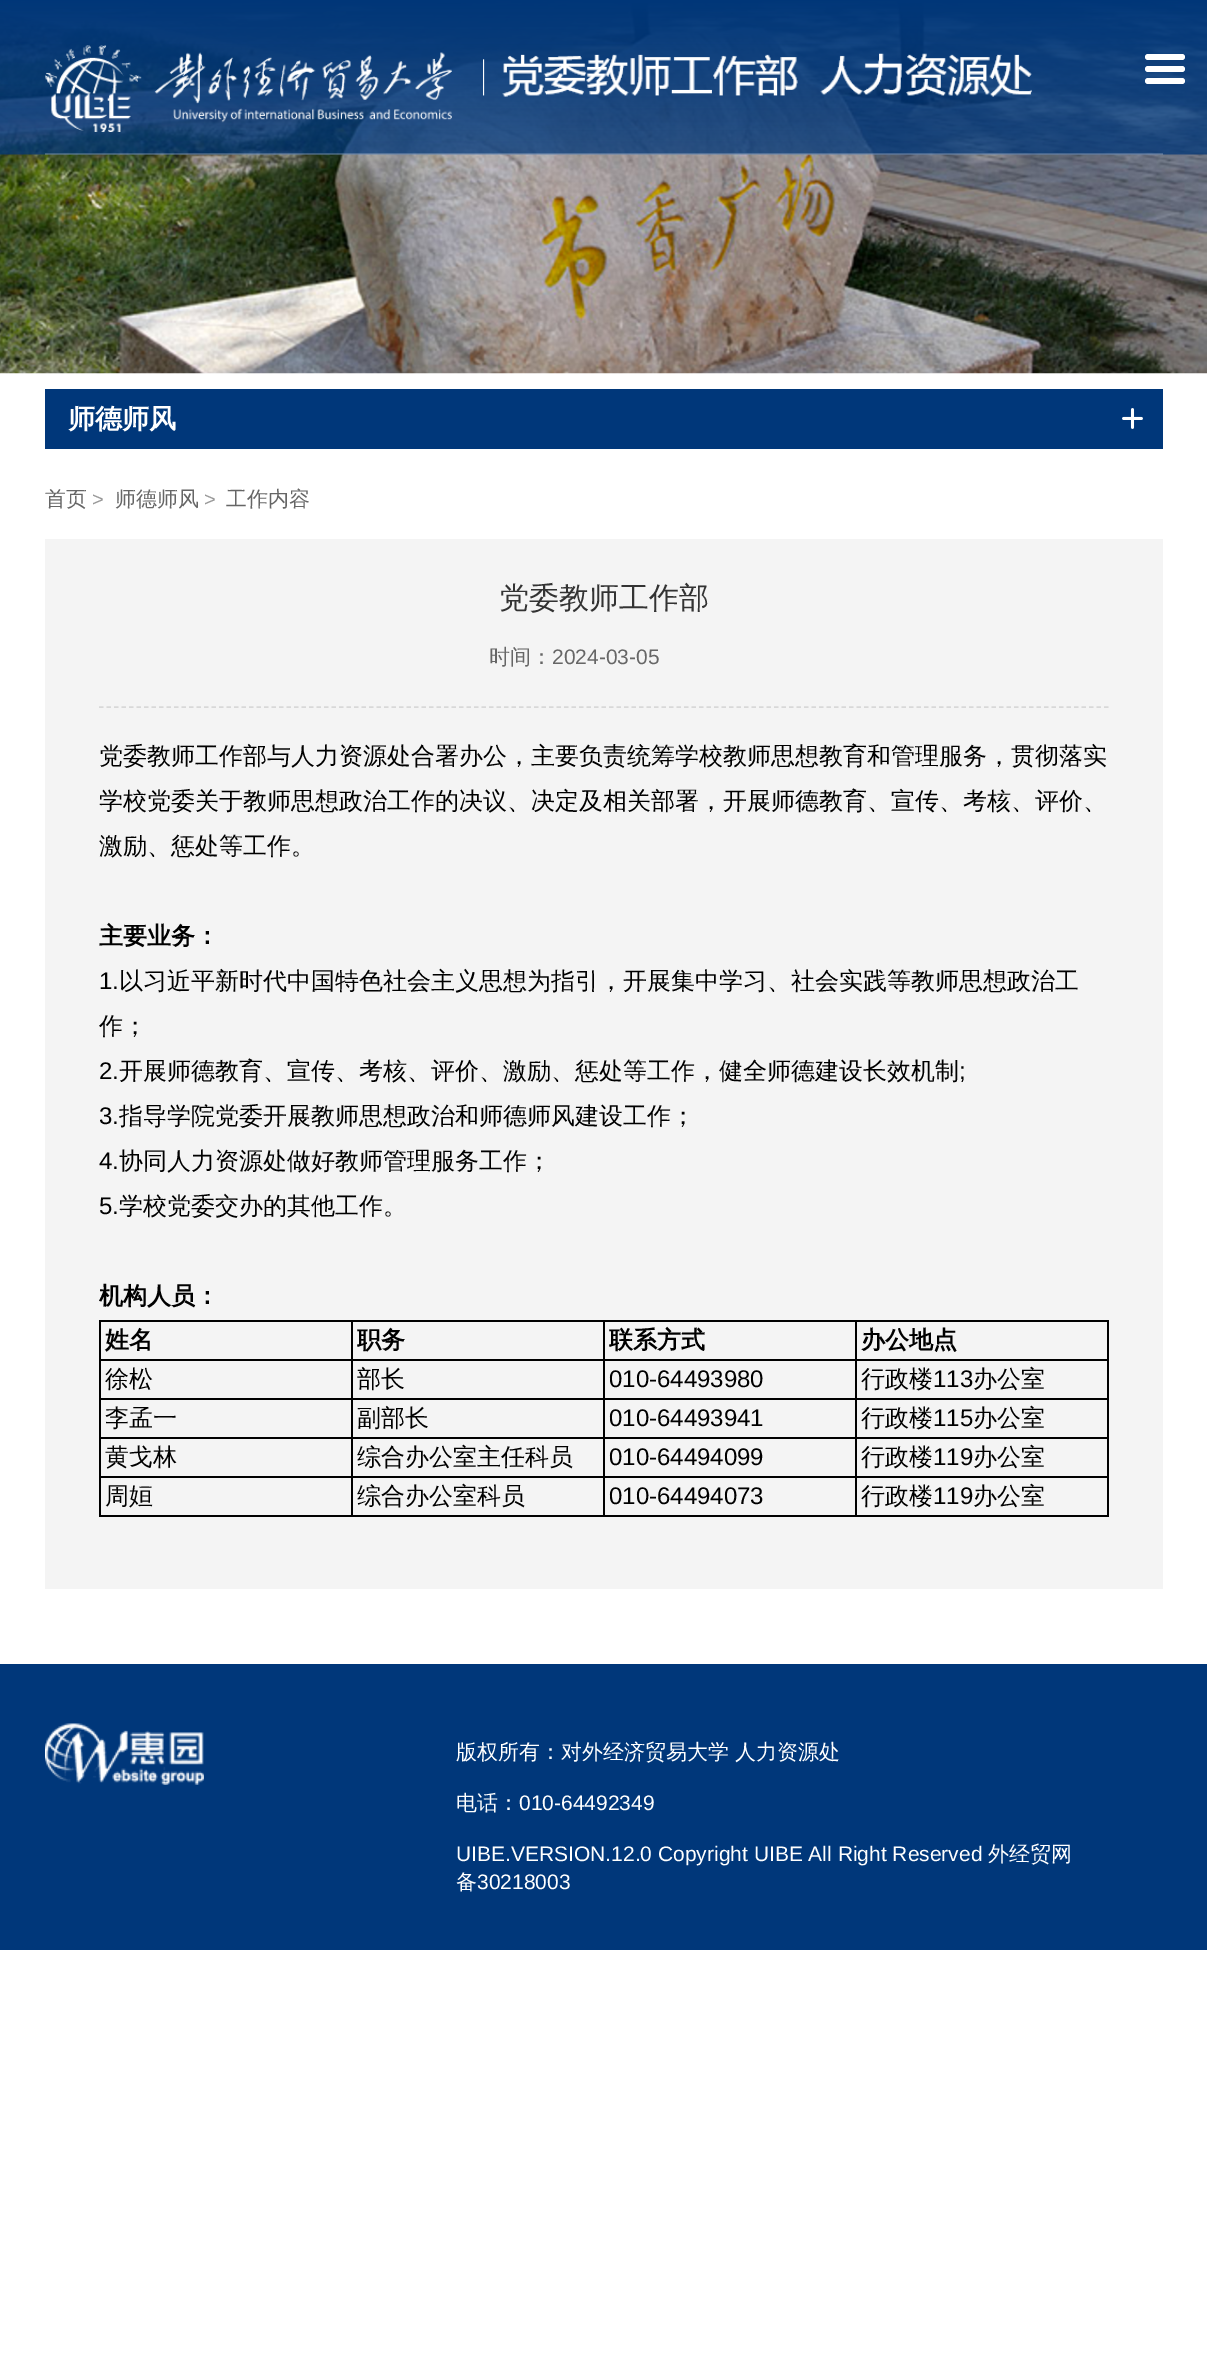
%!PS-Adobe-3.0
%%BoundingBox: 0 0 1207 2354
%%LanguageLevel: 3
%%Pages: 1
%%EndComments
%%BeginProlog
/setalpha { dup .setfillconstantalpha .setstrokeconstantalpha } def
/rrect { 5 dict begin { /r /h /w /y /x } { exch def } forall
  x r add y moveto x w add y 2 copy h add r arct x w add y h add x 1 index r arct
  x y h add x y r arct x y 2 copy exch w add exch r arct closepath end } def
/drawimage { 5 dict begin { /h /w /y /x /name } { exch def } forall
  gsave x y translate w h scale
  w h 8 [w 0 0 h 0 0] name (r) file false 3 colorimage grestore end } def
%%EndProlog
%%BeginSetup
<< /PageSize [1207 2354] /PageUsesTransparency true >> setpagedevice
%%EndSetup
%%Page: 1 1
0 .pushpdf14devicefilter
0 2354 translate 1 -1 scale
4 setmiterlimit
1 setgray
0 0 1207 2354 rectfill
(images/4.raw) 0 3 1207 371 drawimage
(images/1.raw) 0 0 1207 155 drawimage
0.2 setalpha
45 153 1118 2 rectfill
1 setalpha
(images/2.raw) 45 45 407 87 drawimage
(images/3.raw) 483 53 549 44 drawimage
1145 54 40 6 3 rrect fill
1145 66 40 6 3 rrect fill
1145 78 40 6 3 rrect fill
0 0.216 0.478 setrgbcolor
45 389 1118 60 rectfill
(images/5.raw) 1122 408 21 21 drawimage
0.957 setgray
45 539 1118 1050 rectfill
0.847 setgray
1.5 setlinewidth
[4.5 3] 0 setdash
newpath 99 707 moveto 1108.5 707 lineto stroke
0 setgray
855 1320 254 2 rectfill
855 1359 254 2 rectfill
855 1398 254 2 rectfill
855 1437 254 2 rectfill
855 1476 254 2 rectfill
1107 1476 2 41 rectfill
855 1515 254 2 rectfill
855 1476 2 41 rectfill
603 1476 254 2 rectfill
855 1437 2 41 rectfill
603 1437 254 2 rectfill
855 1398 2 41 rectfill
603 1398 254 2 rectfill
855 1359 2 41 rectfill
603 1359 254 2 rectfill
855 1320 2 41 rectfill
603 1320 254 2 rectfill
603 1515 254 2 rectfill
603 1476 2 41 rectfill
351 1476 254 2 rectfill
603 1437 2 41 rectfill
351 1437 254 2 rectfill
603 1398 2 41 rectfill
351 1398 254 2 rectfill
603 1359 2 41 rectfill
351 1359 254 2 rectfill
603 1320 2 41 rectfill
351 1320 254 2 rectfill
351 1515 254 2 rectfill
351 1476 2 41 rectfill
99 1476 254 2 rectfill
351 1437 2 41 rectfill
99 1437 254 2 rectfill
351 1398 2 41 rectfill
99 1398 254 2 rectfill
351 1359 2 41 rectfill
99 1359 254 2 rectfill
351 1320 2 41 rectfill
99 1320 254 2 rectfill
99 1515 254 2 rectfill
99 1476 2 41 rectfill
99 1437 2 41 rectfill
99 1398 2 41 rectfill
99 1359 2 41 rectfill
99 1320 2 41 rectfill
1107 1437 2 41 rectfill
1107 1398 2 41 rectfill
1107 1359 2 41 rectfill
1107 1320 2 41 rectfill
0 0.216 0.478 setrgbcolor
0 1664 1207 286 rectfill
(images/6.raw) 45 1723 159 62 drawimage
/WenQuanYiZenHei-Bold [27 0 0 -27 0 0] selectfont
1 setgray
68 428 moveto (师德师风) show
/WenQuanYiZenHei-Medium [21 0 0 -21 0 0] selectfont
0.4 setgray
45 506 moveto (首页) show
/LiberationSans-Regular [20 0 0 -20 0 0] selectfont
0.6 setgray
92 506 moveto (>) show
/WenQuanYiZenHei-Medium [21 0 0 -21 0 0] selectfont
0.4 setgray
115 506 moveto (师德师风) show
/LiberationSans-Regular [20 0 0 -20 0 0] selectfont
0.6 setgray
204 506 moveto (>) show
/WenQuanYiZenHei-Medium [21 0 0 -21 0 0] selectfont
0.4 setgray
226 506 moveto (工作内容) show
/WenQuanYiZenHei-Medium [30 0 0 -30 0 0] selectfont
0.2 setgray
499 608 moveto (党委教师工作部) show
/WenQuanYiZenHei-Medium [21 0 0 -21 0 0] selectfont
0.4 setgray
489 664 moveto (时间：) show
/LiberationSans-Regular [21 0 0 -21 0 0] selectfont
552 664 moveto (2024-03-05) show
/WenQuanYiZenHei-Medium [24 0 0 -24 0 0] selectfont
0 setgray
99 764 moveto (党委教师工作部与人力资源处合署办公，主要负责统筹学校教师思想教育和管理服务，贯彻落实) show
99 809 moveto (学校党委关于教师思想政治工作的决议、决定及相关部署，开展师德教育、宣传、考核、评价、) show
99 854 moveto (激励、惩处等工作。) show
/WenQuanYiZenHei-Bold [24 0 0 -24 0 0] selectfont
99 944 moveto (主要业务：) show
/LiberationSans-Regular [24 0 0 -24 0 0] selectfont
99 989 moveto (1.) show
/WenQuanYiZenHei-Medium [24 0 0 -24 0 0] selectfont
119 989 moveto (以习近平新时代中国特色社会主义思想为指引，开展集中学习、社会实践等教师思想政治工) show
99 1034 moveto (作；) show
/LiberationSans-Regular [24 0 0 -24 0 0] selectfont
99 1079 moveto (2.) show
/WenQuanYiZenHei-Medium [24 0 0 -24 0 0] selectfont
119 1079 moveto (开展师德教育、宣传、考核、评价、激励、惩处等工作，健全师德建设长效机制) show
/LiberationSans-Regular [24 0 0 -24 0 0] selectfont
959 1079 moveto (;) show
99 1124 moveto (3.) show
/WenQuanYiZenHei-Medium [24 0 0 -24 0 0] selectfont
119 1124 moveto (指导学院党委开展教师思想政治和师德师风建设工作；) show
/LiberationSans-Regular [24 0 0 -24 0 0] selectfont
99 1169 moveto (4.) show
/WenQuanYiZenHei-Medium [24 0 0 -24 0 0] selectfont
119 1169 moveto (协同人力资源处做好教师管理服务工作；) show
/LiberationSans-Regular [24 0 0 -24 0 0] selectfont
99 1214 moveto (5.) show
/WenQuanYiZenHei-Medium [24 0 0 -24 0 0] selectfont
119 1214 moveto (学校党委交办的其他工作。) show
/WenQuanYiZenHei-Bold [24 0 0 -24 0 0] selectfont
99 1304 moveto (机构人员：) show
105 1348 moveto (姓名) show
357 1348 moveto (职务) show
609 1348 moveto (联系方式) show
861 1348 moveto (办公地点) show
/WenQuanYiZenHei-Medium [24 0 0 -24 0 0] selectfont
105 1387 moveto (徐松) show
357 1387 moveto (部长) show
/LiberationSans-Regular [24 0 0 -24 0 0] selectfont
609 1387 moveto (010-64493980) show
/WenQuanYiZenHei-Medium [24 0 0 -24 0 0] selectfont
861 1387 moveto (行政楼) show
/LiberationSans-Regular [24 0 0 -24 0 0] selectfont
933 1387 moveto (113) show
/WenQuanYiZenHei-Medium [24 0 0 -24 0 0] selectfont
973 1387 moveto (办公室) show
105 1426 moveto (李孟一) show
357 1426 moveto (副部长) show
/LiberationSans-Regular [24 0 0 -24 0 0] selectfont
609 1426 moveto (010-64493941) show
/WenQuanYiZenHei-Medium [24 0 0 -24 0 0] selectfont
861 1426 moveto (行政楼) show
/LiberationSans-Regular [24 0 0 -24 0 0] selectfont
933 1426 moveto (115) show
/WenQuanYiZenHei-Medium [24 0 0 -24 0 0] selectfont
973 1426 moveto (办公室) show
105 1465 moveto (黄戈林) show
357 1465 moveto (综合办公室主任科员) show
/LiberationSans-Regular [24 0 0 -24 0 0] selectfont
609 1465 moveto (010-64494099) show
/WenQuanYiZenHei-Medium [24 0 0 -24 0 0] selectfont
861 1465 moveto (行政楼) show
/LiberationSans-Regular [24 0 0 -24 0 0] selectfont
933 1465 moveto (119) show
/WenQuanYiZenHei-Medium [24 0 0 -24 0 0] selectfont
973 1465 moveto (办公室) show
105 1504 moveto (周姮) show
357 1504 moveto (综合办公室科员) show
/LiberationSans-Regular [24 0 0 -24 0 0] selectfont
609 1504 moveto (010-64494073) show
/WenQuanYiZenHei-Medium [24 0 0 -24 0 0] selectfont
861 1504 moveto (行政楼) show
/LiberationSans-Regular [24 0 0 -24 0 0] selectfont
933 1504 moveto (119) show
/WenQuanYiZenHei-Medium [24 0 0 -24 0 0] selectfont
973 1504 moveto (办公室) show
/WenQuanYiZenHei-Medium [21 0 0 -21 0 0] selectfont
1 setgray
456 1759 moveto (版权所有：对外经济贸易大学 人力资源处) show
456 1810 moveto (电话：) show
/LiberationSans-Regular [21 0 0 -21 0 0] selectfont
519 1810 moveto (010-64492349) show
456 1861 moveto (UIBE.VERSION.12.0 Copyright UIBE All Right Reserved) show
/WenQuanYiZenHei-Medium [21 0 0 -21 0 0] selectfont
988 1861 moveto (外经贸网) show
456 1889 moveto (备) show
/LiberationSans-Regular [21 0 0 -21 0 0] selectfont
477 1889 moveto (30218003) show
.poppdf14devicefilter showpage
%%EOF
